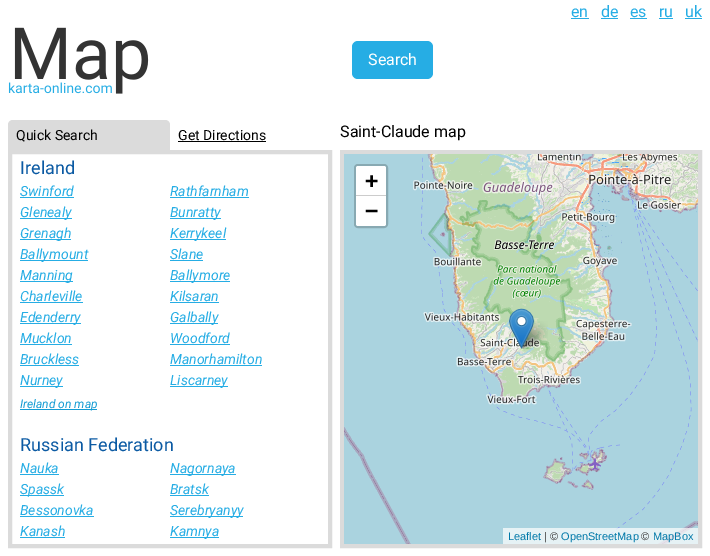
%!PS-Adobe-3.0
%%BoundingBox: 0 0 710 556
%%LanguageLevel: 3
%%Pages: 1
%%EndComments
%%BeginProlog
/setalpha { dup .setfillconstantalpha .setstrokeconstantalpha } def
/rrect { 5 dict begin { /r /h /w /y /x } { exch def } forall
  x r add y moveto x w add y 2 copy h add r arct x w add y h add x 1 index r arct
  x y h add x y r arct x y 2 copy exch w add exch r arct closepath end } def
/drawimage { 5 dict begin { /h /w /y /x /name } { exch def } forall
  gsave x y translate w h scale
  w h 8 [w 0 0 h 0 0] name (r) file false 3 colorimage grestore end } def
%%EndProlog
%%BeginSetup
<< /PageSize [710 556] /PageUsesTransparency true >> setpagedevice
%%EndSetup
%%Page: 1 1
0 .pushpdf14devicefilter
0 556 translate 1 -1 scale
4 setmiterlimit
1 setgray
0 0 710 556 rectfill
0.149 0.678 0.894 setrgbcolor
571 18 18 1 rectfill
601 18 17 1 rectfill
630 18 17 1 rectfill
659 18 14 1 rectfill
685 18 17 1 rectfill
(images/1.raw) 8 27 141 67 drawimage
352 41 81 38 6 rrect fill
0.859 setgray
newpath 13 120 moveto 165 120 lineto 168 120 170 122 170 125 curveto 170 150 lineto 8 150 lineto 8 125 lineto 8 122 10 120 13 120 curveto closepath fill
0 setgray
178 141 88 1 rectfill
0.859 setgray
4 setlinewidth
10 152 320 394 rectstroke
0.149 0.678 0.894 setrgbcolor
20 197 54 1 rectfill
170 197 79 1 rectfill
20 218 52 1 rectfill
170 218 51 1 rectfill
20 239 51 1 rectfill
170 239 56 1 rectfill
20 260 68 1 rectfill
170 260 33 1 rectfill
20 281 53 1 rectfill
170 281 60 1 rectfill
20 302 63 1 rectfill
170 302 49 1 rectfill
20 323 61 1 rectfill
170 323 48 1 rectfill
20 344 52 1 rectfill
170 344 60 1 rectfill
20 365 59 1 rectfill
170 365 92 1 rectfill
20 386 43 1 rectfill
170 386 58 1 rectfill
0.082 0.612 0.827 setrgbcolor
20 409 77 1 rectfill
0.149 0.678 0.894 setrgbcolor
20 474 39 1 rectfill
170 474 66 1 rectfill
20 495 44 1 rectfill
170 495 39 1 rectfill
20 516 74 1 rectfill
170 516 73 1 rectfill
20 537 45 1 rectfill
170 537 49 1 rectfill
0.859 setgray
342 152 358 394 rectstroke
0.667 0.827 0.875 setrgbcolor
344 154 37 237 rectfill
(images/2.raw) 381 154 256 237 drawimage
(images/3.raw) 637 154 61 237 drawimage
(images/4.raw) 344 391 37 153 drawimage
(images/5.raw) 381 391 256 153 drawimage
(images/6.raw) 637 391 61 153 drawimage
(images/8.raw) 519 321 29 28 drawimage
(images/7.raw) 509 308 25 41 drawimage
0.533 0.663 0.698 setrgbcolor
2 setlinewidth
355 165 32 62 3 rrect stroke
1 setgray
newpath 358 166 moveto 384 166 lineto 385 166 386 167 386 168 curveto 386 195 lineto 356 195 lineto 356 168 lineto 356 167 357 166 358 166 curveto closepath fill
0.8 setgray
356 195 30 1 rectfill
1 setgray
newpath 356 196 moveto 386 196 lineto 386 224 lineto 386 225 385 226 384 226 curveto 358 226 lineto 357 226 356 225 356 224 curveto closepath fill
0.7 setalpha
503 528 195 16 rectfill
/Roboto-Regular [16 0 0 -16 0 0] selectfont
1 setalpha
0.149 0.678 0.894 setrgbcolor
571 17 moveto (en) show
601 17 moveto (de) show
630 17 moveto (es) show
659 17 moveto (ru) show
685 17 moveto (uk) show
1 setgray
368 65 moveto (Search) show
/Roboto-Regular [14 0 0 -14 0 0] selectfont
0 setgray
16 140 moveto (Quick Search) show
178 140 moveto (Get Directions) show
/Roboto-Regular [18 0 0 -18 0 0] selectfont
0.043 0.353 0.639 setrgbcolor
20 174 moveto (Ireland) show
/Roboto-Italic [14 0 0 -14 0 0] selectfont
0.149 0.678 0.894 setrgbcolor
20 196 moveto (Swinford) show
170 196 moveto (Rathfarnham) show
20 217 moveto (Glenealy) show
170 217 moveto (Bunratty) show
20 238 moveto (Grenagh) show
170 238 moveto (Kerrykeel) show
20 259 moveto (Ballymount) show
170 259 moveto (Slane) show
20 280 moveto (Manning) show
170 280 moveto (Ballymore) show
20 301 moveto (Charleville) show
170 301 moveto (Kilsaran) show
20 322 moveto (Edenderry) show
170 322 moveto (Galbally) show
20 343 moveto (Mucklon) show
170 343 moveto (Woodford) show
20 364 moveto (Bruckless) show
170 364 moveto (Manorhamilton) show
20 385 moveto (Nurney) show
170 385 moveto (Liscarney) show
/Roboto-Italic [12 0 0 -12 0 0] selectfont
0.082 0.612 0.827 setrgbcolor
20 408 moveto (Ireland on map) show
/Roboto-Regular [18 0 0 -18 0 0] selectfont
0.043 0.353 0.639 setrgbcolor
20 451 moveto (Russian Federation) show
/Roboto-Italic [14 0 0 -14 0 0] selectfont
0.149 0.678 0.894 setrgbcolor
20 473 moveto (Nauka) show
170 473 moveto (Nagornaya) show
20 494 moveto (Spassk) show
170 494 moveto (Bratsk) show
20 515 moveto (Bessonovka) show
170 515 moveto (Serebryanyy) show
20 536 moveto (Kanash) show
170 536 moveto (Kamnya) show
/Roboto-Regular [16 0 0 -16 0 0] selectfont
0 setgray
340 137 moveto (Saint-Claude map) show
/DejaVuSansMono-Bold [22 0 0 -22 0 0] selectfont
365 188 moveto (+) show
365 218 moveto (−) show
/LiberationSans-Regular [11 0 0 -11 0 0] selectfont
0 0.471 0.659 setrgbcolor
508 540 moveto (Leaflet) show
0.2 setgray
544 540 moveto (| ©) show
0 0.471 0.659 setrgbcolor
561 540 moveto (OpenStreetMap) show
0.2 setgray
641 540 moveto (©) show
0 0.471 0.659 setrgbcolor
653 540 moveto (MapBox) show
.poppdf14devicefilter showpage
%%EOF
